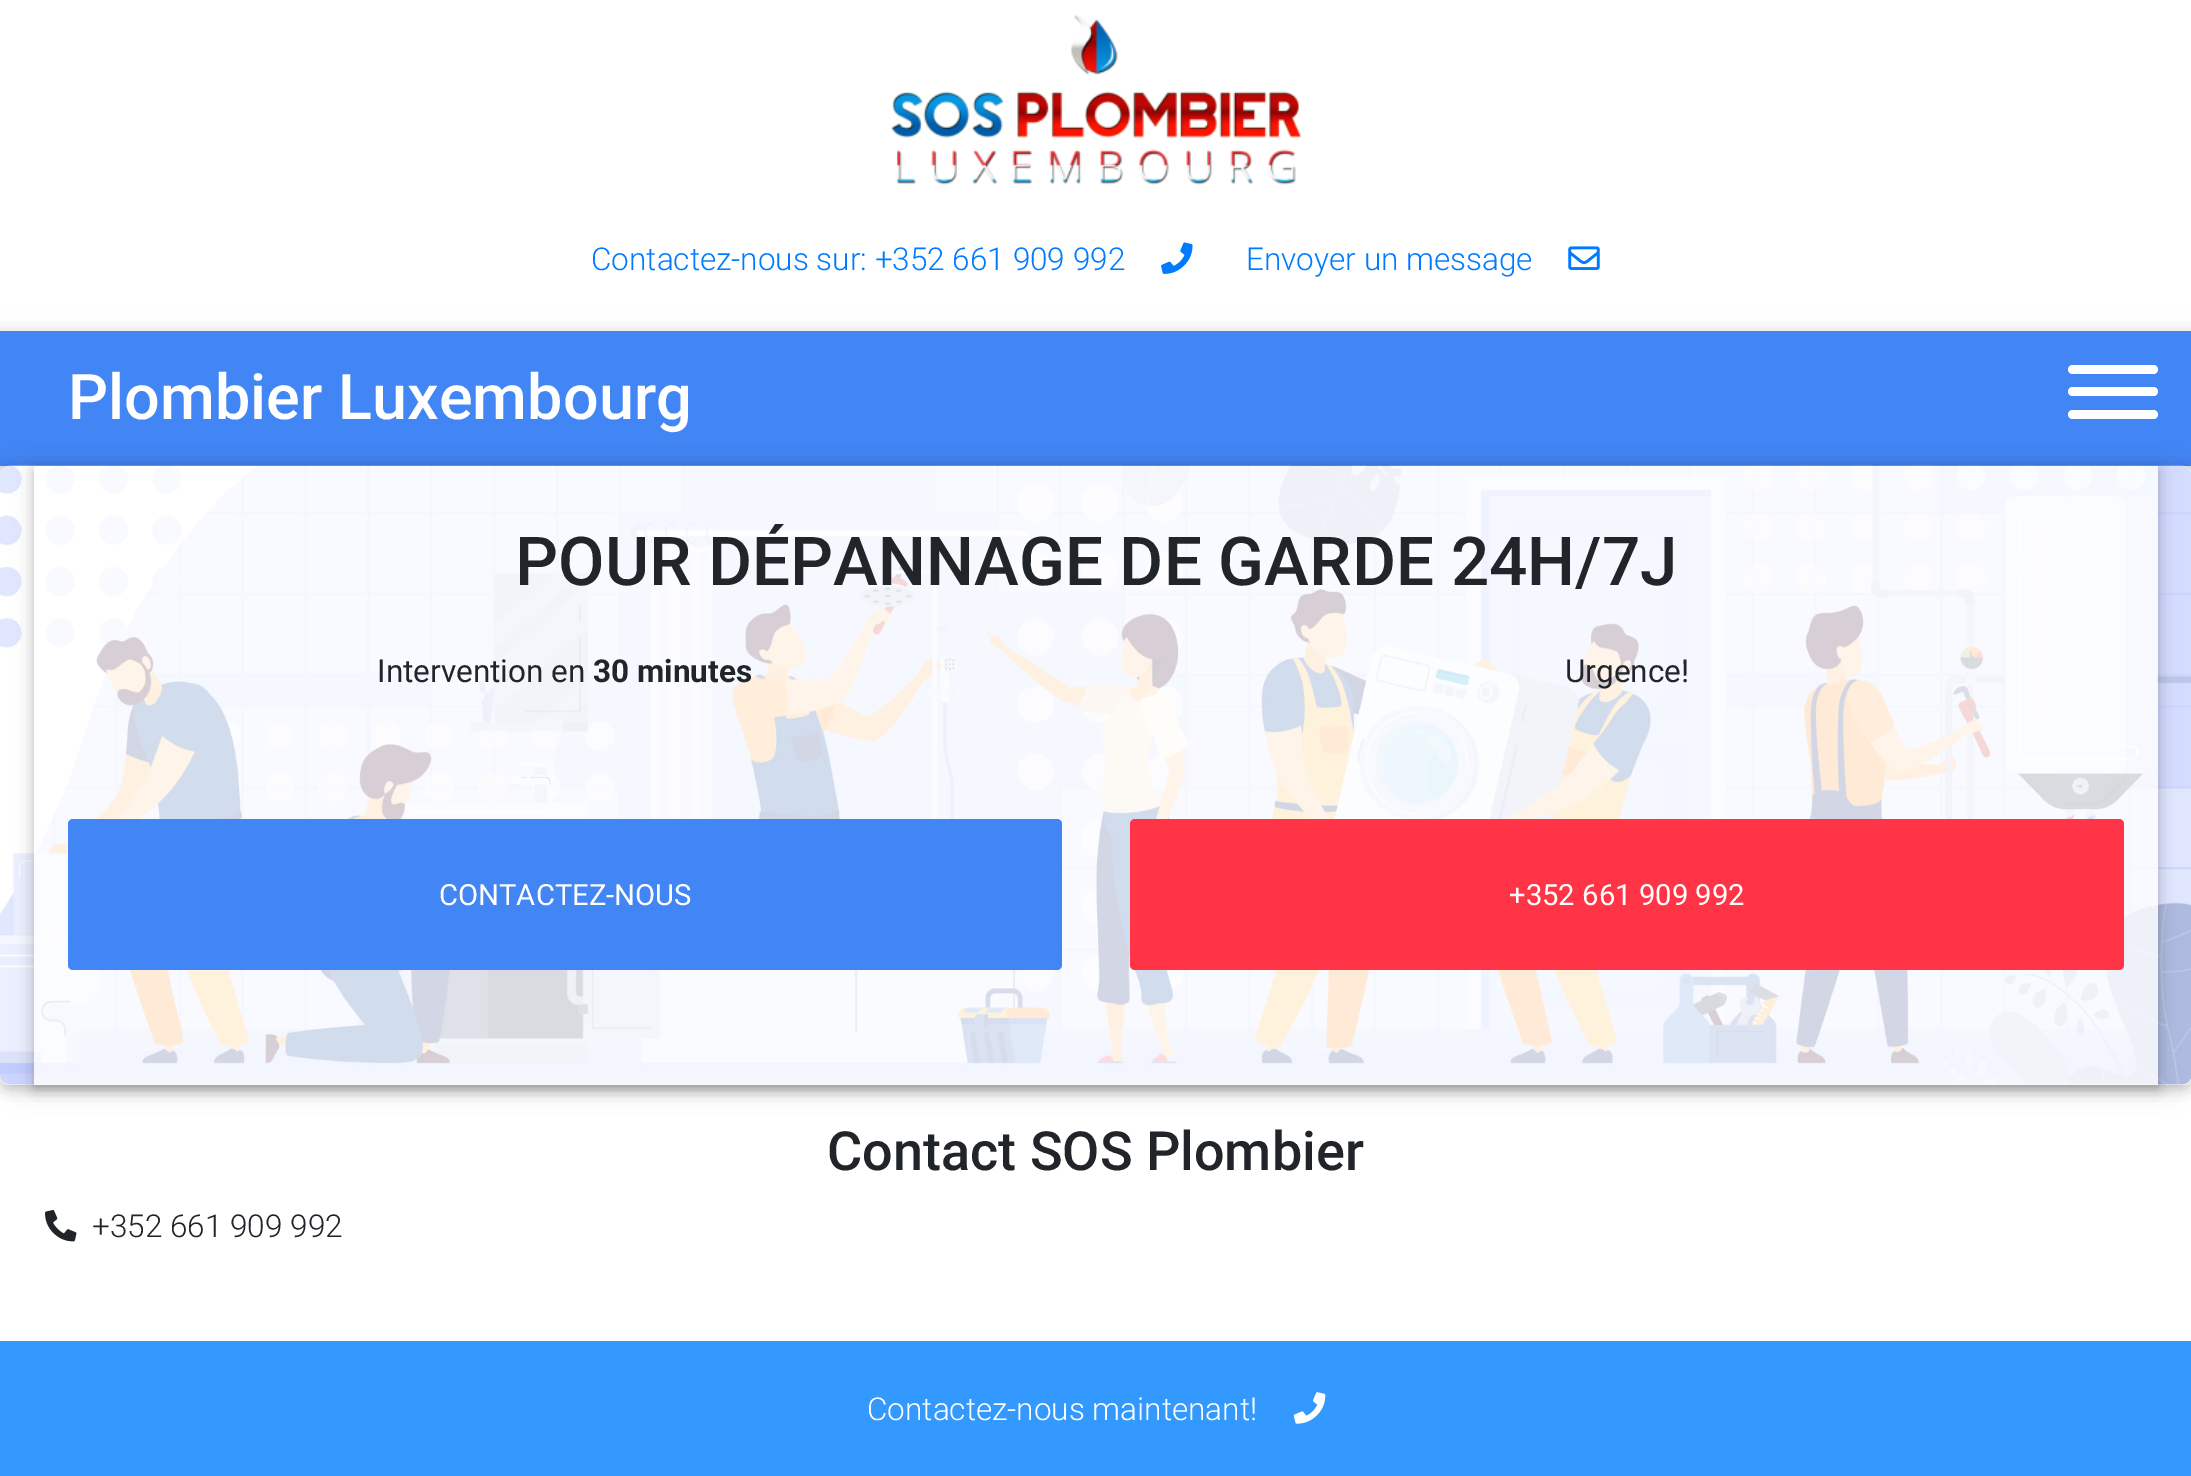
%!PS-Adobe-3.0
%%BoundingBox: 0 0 2191 1476
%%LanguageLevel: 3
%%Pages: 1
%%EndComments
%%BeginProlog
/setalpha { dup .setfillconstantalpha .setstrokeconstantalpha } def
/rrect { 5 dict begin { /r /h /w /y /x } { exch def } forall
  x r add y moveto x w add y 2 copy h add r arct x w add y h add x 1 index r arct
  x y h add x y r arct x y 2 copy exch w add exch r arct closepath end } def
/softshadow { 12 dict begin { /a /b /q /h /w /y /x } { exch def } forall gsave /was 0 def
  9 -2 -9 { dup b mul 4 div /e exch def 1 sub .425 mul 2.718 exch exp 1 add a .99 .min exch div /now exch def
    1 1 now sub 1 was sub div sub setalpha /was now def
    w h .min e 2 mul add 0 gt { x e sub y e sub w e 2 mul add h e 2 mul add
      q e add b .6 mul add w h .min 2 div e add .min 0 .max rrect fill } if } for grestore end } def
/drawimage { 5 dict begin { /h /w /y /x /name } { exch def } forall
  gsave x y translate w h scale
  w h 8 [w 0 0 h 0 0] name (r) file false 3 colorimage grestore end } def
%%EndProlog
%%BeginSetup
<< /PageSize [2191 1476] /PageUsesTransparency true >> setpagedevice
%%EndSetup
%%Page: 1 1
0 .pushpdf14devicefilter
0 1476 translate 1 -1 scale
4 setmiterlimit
1 setgray
0 0 2191 1476 rectfill
gsave
newpath 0 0 moveto 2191 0 lineto 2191 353 lineto 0 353 lineto closepath 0 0 moveto 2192 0 lineto 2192 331 lineto 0 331 lineto closepath eoclip newpath
0 setgray
0 5 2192 330 0 5.5 0.16 softshadow
grestore
(images/1.raw) 891 14 411 171 drawimage
(images/2.raw) 1161 242 32 32 drawimage
(images/3.raw) 1568 246 32 24 drawimage
0 setgray
0 335 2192 135 0 11 0.12 softshadow
0 335 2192 135 0 5.5 0.16 softshadow
0.259 0.522 0.957 setrgbcolor
0 331 2191 135 rectfill
1 setgray
2068 365 90 9 4.5 rrect fill
2068 387 90 9 4.5 rrect fill
2068 410 90 9 4.5 rrect fill
0 setgray
0 470 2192 619 9 11 0.12 softshadow
0 470 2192 619 9 5.5 0.16 softshadow
1 setgray
0 466 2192 619 9 rrect fill
(images/4.raw) 0 465 2191 620 drawimage
gsave
newpath 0 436 moveto 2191 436 lineto 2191 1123 lineto 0 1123 lineto closepath 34 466 moveto 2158 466 lineto 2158 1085 lineto 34 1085 lineto closepath eoclip newpath
0 setgray
34 470 2124 619 0 11 0.12 softshadow
grestore
gsave
newpath 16 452 moveto 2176 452 lineto 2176 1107 lineto 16 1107 lineto closepath 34 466 moveto 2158 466 lineto 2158 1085 lineto 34 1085 lineto closepath eoclip newpath
0 setgray
34 470 2124 619 0 5.5 0.16 softshadow
grestore
0.8 setalpha
34 466 2124 619 rectfill
1 setalpha
0.259 0.522 0.957 setrgbcolor
68 819 994 151 5 rrect fill
1 0.208 0.278 setrgbcolor
1130 819 994 151 5 rrect fill
(images/5.raw) 45 1210 32 32 drawimage
0.204 0.6 1 setrgbcolor
0 1341 2191 135 rectfill
(images/6.raw) 1293 1392 33 32 drawimage
/Roboto-Light [31.5 0 0 -31.5 0 0] selectfont
0 0.482 1 setrgbcolor
591 270 moveto (Contactez-nous sur: +352 661 909 992) show
1246 270 moveto (Envoyer un message) show
/Roboto-Medium [63 0 0 -63 0 0] selectfont
1 setgray
68 419 moveto (Plombier Luxembourg) show
/Roboto-Medium [67.5 0 0 -67.5 0 0] selectfont
0.129 0.145 0.161 setrgbcolor
515 585 moveto (POUR DÉPANNAGE DE GARDE 24H/7J) show
/Roboto-Regular [31.5 0 0 -31.5 0 0] selectfont
377 682 moveto (Intervention en) show
/Roboto-Bold [31.5 0 0 -31.5 0 0] selectfont
593 682 moveto (30 minutes) show
/Roboto-Regular [29.25 0 0 -29.25 0 0] selectfont
1 setgray
439 905 moveto (CONTACTEZ-NOUS) show
/Roboto-Regular [31.5 0 0 -31.5 0 0] selectfont
0.129 0.145 0.161 setrgbcolor
1565 682 moveto (Urgence!) show
/Roboto-Regular [29.25 0 0 -29.25 0 0] selectfont
1 setgray
1509 905 moveto (+352 661 909 992) show
/Roboto-Medium [54 0 0 -54 0 0] selectfont
0.129 0.145 0.161 setrgbcolor
827 1170 moveto (Contact SOS Plombier) show
/Roboto-Light [31.5 0 0 -31.5 0 0] selectfont
92 1237 moveto (+352 661 909 992) show
1 setgray
867 1420 moveto (Contactez-nous maintenant!) show
.poppdf14devicefilter showpage
%%EOF
